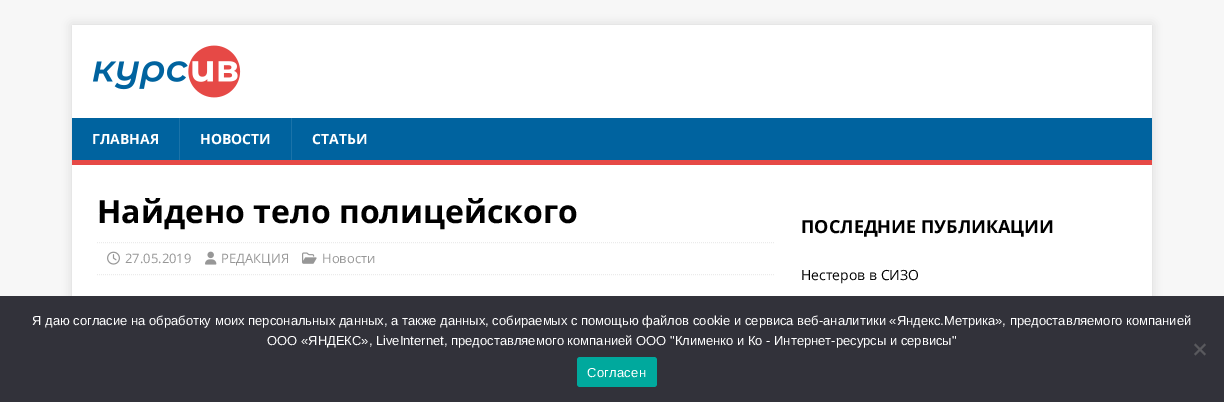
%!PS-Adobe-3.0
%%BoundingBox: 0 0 1224 402
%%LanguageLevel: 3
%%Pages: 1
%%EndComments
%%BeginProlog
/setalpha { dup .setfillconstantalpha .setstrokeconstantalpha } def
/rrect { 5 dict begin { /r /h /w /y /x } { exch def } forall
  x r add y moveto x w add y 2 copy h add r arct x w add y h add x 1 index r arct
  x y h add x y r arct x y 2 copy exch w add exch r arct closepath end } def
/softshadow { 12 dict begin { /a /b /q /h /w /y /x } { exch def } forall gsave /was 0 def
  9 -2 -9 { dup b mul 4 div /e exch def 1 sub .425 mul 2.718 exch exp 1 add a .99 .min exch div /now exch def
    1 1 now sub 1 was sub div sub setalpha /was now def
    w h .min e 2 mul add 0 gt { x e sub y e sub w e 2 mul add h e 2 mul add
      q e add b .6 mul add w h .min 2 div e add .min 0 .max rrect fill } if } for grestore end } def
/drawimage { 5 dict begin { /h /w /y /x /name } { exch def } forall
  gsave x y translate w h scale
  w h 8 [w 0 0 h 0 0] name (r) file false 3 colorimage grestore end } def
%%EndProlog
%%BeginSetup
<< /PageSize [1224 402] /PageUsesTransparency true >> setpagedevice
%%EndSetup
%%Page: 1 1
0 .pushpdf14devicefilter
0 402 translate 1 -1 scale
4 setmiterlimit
0.969 setgray
0 0 1224 402 rectfill
0.196 setgray
72 25 1080 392 0 5 0.17 softshadow
1 setgray
72 25 1080 93 rectfill
(images/1.raw) 92 45 149 53 drawimage
0 0.388 0.624 setrgbcolor
72 118 1080 42 rectfill
0.902 0.286 0.275 setrgbcolor
72 160 1080 5 rectfill
0.102 0.451 0.663 setrgbcolor
179 118 1 42 rectfill
291 118 1 42 rectfill
1 setgray
72 165 1080 131 rectfill
0.922 setgray
[1 1] 0 setdash
newpath 97 242.5 moveto 775 242.5 lineto stroke
newpath 97 274.5 moveto 775 274.5 lineto stroke
(images/2.raw) 107 251 13 14 drawimage
(images/3.raw) 205 251 12 14 drawimage
(images/4.raw) 302 252 15 12 drawimage
0.196 0.196 0.227 setrgbcolor
0 296 1224 106 rectfill
0.349 0.349 0.365 setrgbcolor
newpath 1204.5 343.5 moveto 1206 345 lineto 1195.5 355.5 lineto 1194 354 lineto closepath fill
newpath 1194 345 moveto 1195.5 343.5 lineto 1206 354 lineto 1204.5 355.5 lineto closepath fill
0 0.663 0.616 setrgbcolor
577 357 80 30 3 rrect fill
/OpenSans-Bold [14 0 0 -14 0 0] selectfont
1 setgray
92 144 moveto (ГЛАВНАЯ) show
200 144 moveto (НОВОСТИ) show
312 144 moveto (СТАТЬИ) show
/OpenSans-Bold [32 0 0 -32 0 0] selectfont
0 setgray
97 223 moveto (Найдено тело полицейского) show
/OpenSans-Regular [13 0 0 -13 0 0] selectfont
0.592 setgray
125 263 moveto (27.05.2019) show
221 263 moveto (РЕДАКЦИЯ) show
322 263 moveto (Новости) show
/OpenSans-Bold [18 0 0 -18 0 0] selectfont
0 setgray
801 233 moveto (ПОСЛЕДНИЕ ПУБЛИКАЦИИ) show
/OpenSans-Regular [14 0 0 -14 0 0] selectfont
801 280 moveto (Нестеров в СИЗО) show
/LiberationSans-Regular [13 0 0 -13 0 0] selectfont
1 setgray
32 325 moveto (Я даю согласие на обработку моих персональных данных, а также данных, собираемых с помощью файлов cookie и сервиса веб-аналитики «Яндекс.Метрика», предоставляемого компанией) show
267 345 moveto (ООО «ЯНДЕКС», LiveInternet, предоставляемого компанией ООО "Клименко и Ко - Интернет-ресурсы и сервисы") show
587 377 moveto 0.25 0 (Согласен) ashow
.poppdf14devicefilter showpage
%%EOF
